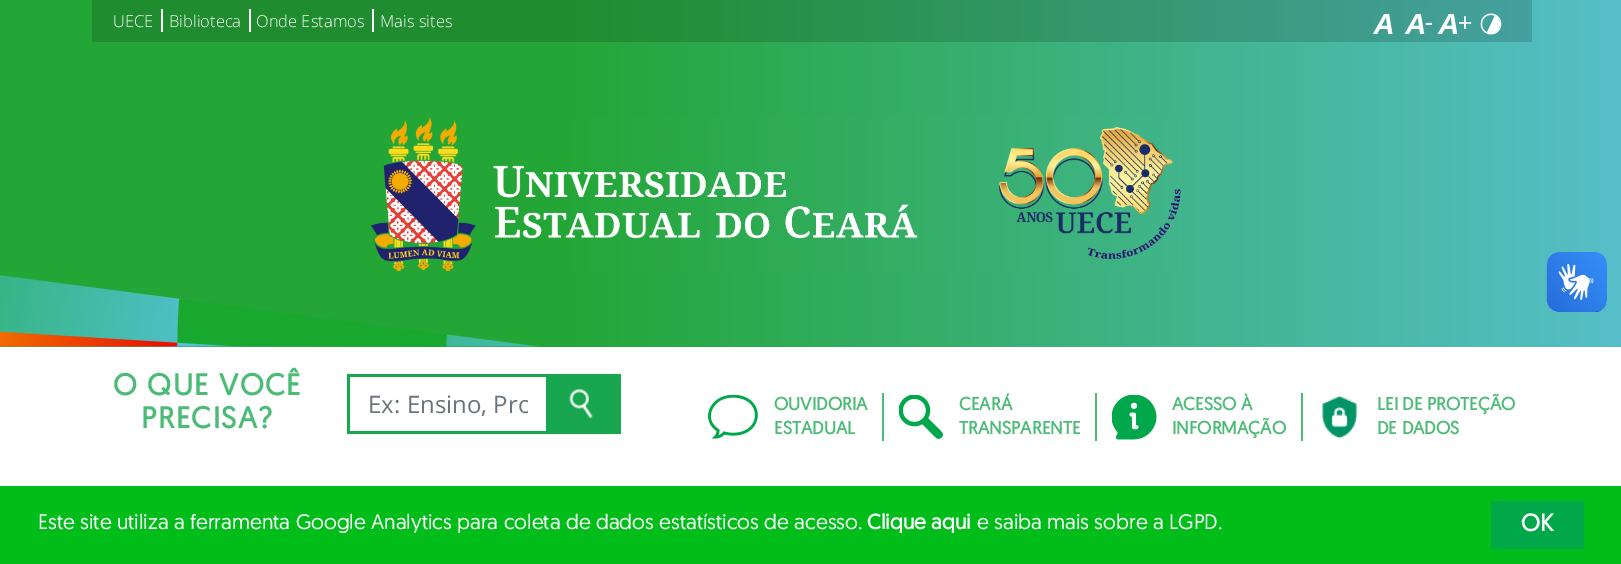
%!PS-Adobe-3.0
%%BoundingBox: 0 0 1621 564
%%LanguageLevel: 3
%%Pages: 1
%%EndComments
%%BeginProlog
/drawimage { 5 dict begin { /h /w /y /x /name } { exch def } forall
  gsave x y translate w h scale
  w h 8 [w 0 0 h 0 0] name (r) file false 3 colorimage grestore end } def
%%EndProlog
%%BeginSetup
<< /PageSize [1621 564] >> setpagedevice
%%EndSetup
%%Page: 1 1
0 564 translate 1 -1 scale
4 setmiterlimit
1 setgray
0 0 1621 564 rectfill
gsave newpath 0 0 moveto 1621 0 lineto 1621 347 lineto 0 347 lineto closepath clip newpath
<< /ShadingType 2 /ColorSpace /DeviceRGB /Coords [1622 324 0 324] /Extend [true true] /Function << /FunctionType 3 /Domain [0 1] /Functions [<< /FunctionType 2 /Domain [0 1] /C0 [0.337 0.749 0.788] /C1 [0.141 0.651 0.216] /N 1 >> << /FunctionType 2 /Domain [0 1] /C0 [0.141 0.651 0.216] /C1 [0.141 0.651 0.216] /N 1 >>] /Bounds [0.65] /Encode [0 1 0 1] >> >> shfill grestore
gsave newpath 92 0 moveto 1532 0 lineto 1532 42 lineto 92 42 lineto closepath clip newpath
<< /ShadingType 2 /ColorSpace /DeviceRGB /Coords [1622 324 0 324] /Extend [true true] /Function << /FunctionType 3 /Domain [0 1] /Functions [<< /FunctionType 2 /Domain [0 1] /C0 [0.286 0.635 0.671] /C1 [0.122 0.553 0.184] /N 1 >> << /FunctionType 2 /Domain [0 1] /C0 [0.122 0.553 0.184] /C1 [0.122 0.553 0.184] /N 1 >>] /Bounds [0.65] /Encode [0 1 0 1] >> >> shfill grestore
(images/1.raw) 0 275 541 72 drawimage
161 9 2 23 rectfill
249 9 2 23 rectfill
372 9 2 23 rectfill
(images/2.raw) 1373 14 20 20 drawimage
(images/3.raw) 1404 14 28 20 drawimage
(images/4.raw) 1437 14 35 20 drawimage
(images/5.raw) 1480 13 22 22 drawimage
(images/6.raw) 370 116 811 156 drawimage
0.094 0.655 0.31 setrgbcolor
347 374 199 3 rectfill
347 431 199 3 rectfill
347 374 3 60 rectfill
546 374 75 60 rectfill
(images/7.raw) 569 389 24 29 drawimage
0.298 0.733 0.463 setrgbcolor
882 393 2 48 rectfill
(images/8.raw) 708 395 50 44 drawimage
1095 393 2 48 rectfill
(images/9.raw) 899 395 44 44 drawimage
1301 393 2 48 rectfill
(images/10.raw) 1112 395 45 45 drawimage
(images/11.raw) 1321 395 37 44 drawimage
(images/12.raw) 1546 252 61 60 drawimage
(images/13.raw) 1547 252 60 60 drawimage
0 0.741 0.098 setrgbcolor
0 486 1621 78 rectfill
0 0.659 0.29 setrgbcolor
1491 501 93 48 rectfill
/OpenSans-Light [16.5 0 0 -16.5 0 0] selectfont
1 setgray
113 27 moveto (UECE) show
169 27 moveto (Biblioteca) show
256 27 moveto (Onde Estamos) show
380 27 moveto (Mais sites) show
/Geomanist-Bold [30 0 0 -30 0 0] selectfont
0.298 0.733 0.463 setrgbcolor
113 395 moveto 1.5 0 (O QUE VOCÊ) ashow
141 428 moveto 1.5 0 (PRECISA?) ashow
gsave
368 387 160 33 rectclip
/OpenSans-Regular [24 0 0 -24 0 0] selectfont
0.424 0.459 0.49 setrgbcolor
368 413 moveto (Ex: Ensino, Pro) show
grestore
/Geomanist-Bold [18 0 0 -18 0 0] selectfont
774 410 moveto (OUVIDORIA) show
774 434 moveto (ESTADUAL) show
959 410 moveto (CEARÁ) show
959 434 moveto (TRANSPARENTE) show
1172 410 moveto (ACESSO À) show
1172 434 moveto (INFORMAÇÃO) show
1377 410 moveto (LEI DE PROTEÇÃO) show
1377 434 moveto (DE DADOS) show
/Geomanist-Regular [21 0 0 -21 0 0] selectfont
1 setgray
38 529 moveto (Este site utiliza a ferramenta Google Analytics para coleta de dados estatísticos de acesso.) show
/Geomanist-Bold [21 0 0 -21 0 0] selectfont
867 529 moveto (Clique aqui) show
/Geomanist-Regular [21 0 0 -21 0 0] selectfont
977 529 moveto (e saiba mais sobre a LGPD.) show
/Geomanist-Bold [24 0 0 -24 0 0] selectfont
1521 531 moveto (OK) show
showpage
%%EOF
